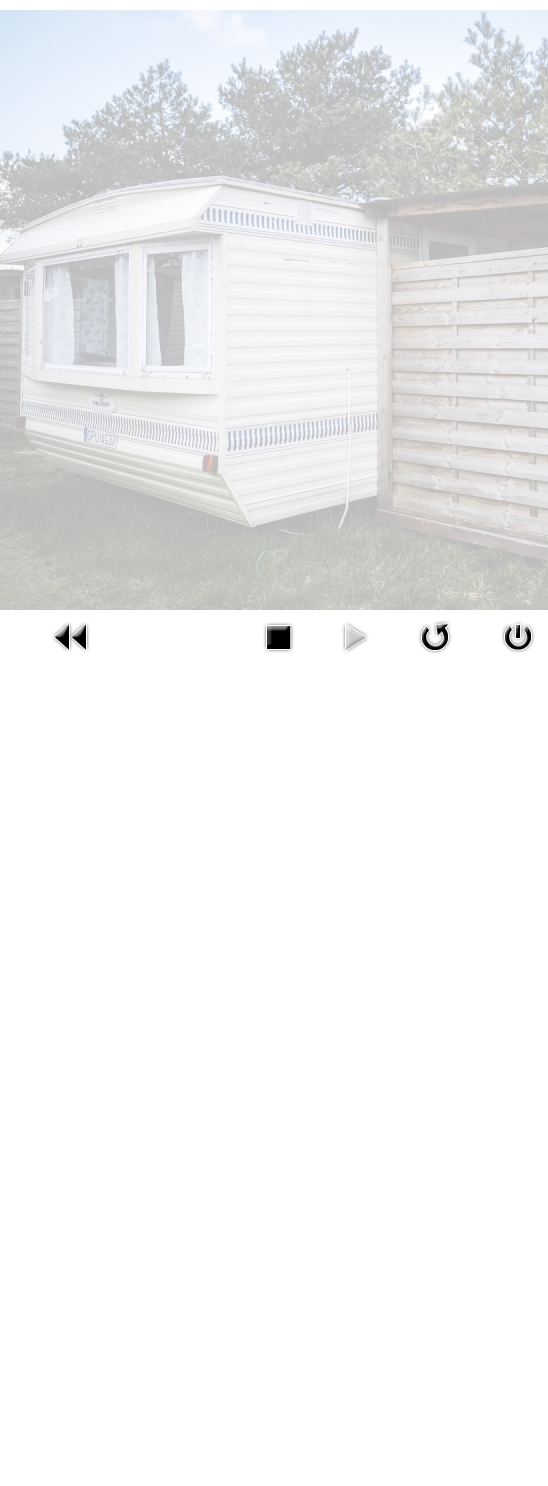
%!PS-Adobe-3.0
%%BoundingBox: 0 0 548 1486
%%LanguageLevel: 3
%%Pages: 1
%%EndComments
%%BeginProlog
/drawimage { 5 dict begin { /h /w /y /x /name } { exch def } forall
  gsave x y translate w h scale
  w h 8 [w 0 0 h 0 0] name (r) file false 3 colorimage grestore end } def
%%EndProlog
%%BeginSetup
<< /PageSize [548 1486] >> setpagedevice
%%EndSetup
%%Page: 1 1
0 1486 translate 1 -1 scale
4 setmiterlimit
1 setgray
0 0 548 1486 rectfill
(images/1.raw) 0 10 548 600 drawimage
(images/2.raw) 52 622 38 30 drawimage
(images/3.raw) 263 622 31 31 drawimage
(images/4.raw) 342 622 27 31 drawimage
(images/5.raw) 418 620 34 34 drawimage
(images/6.raw) 501 621 34 33 drawimage
showpage
%%EOF
